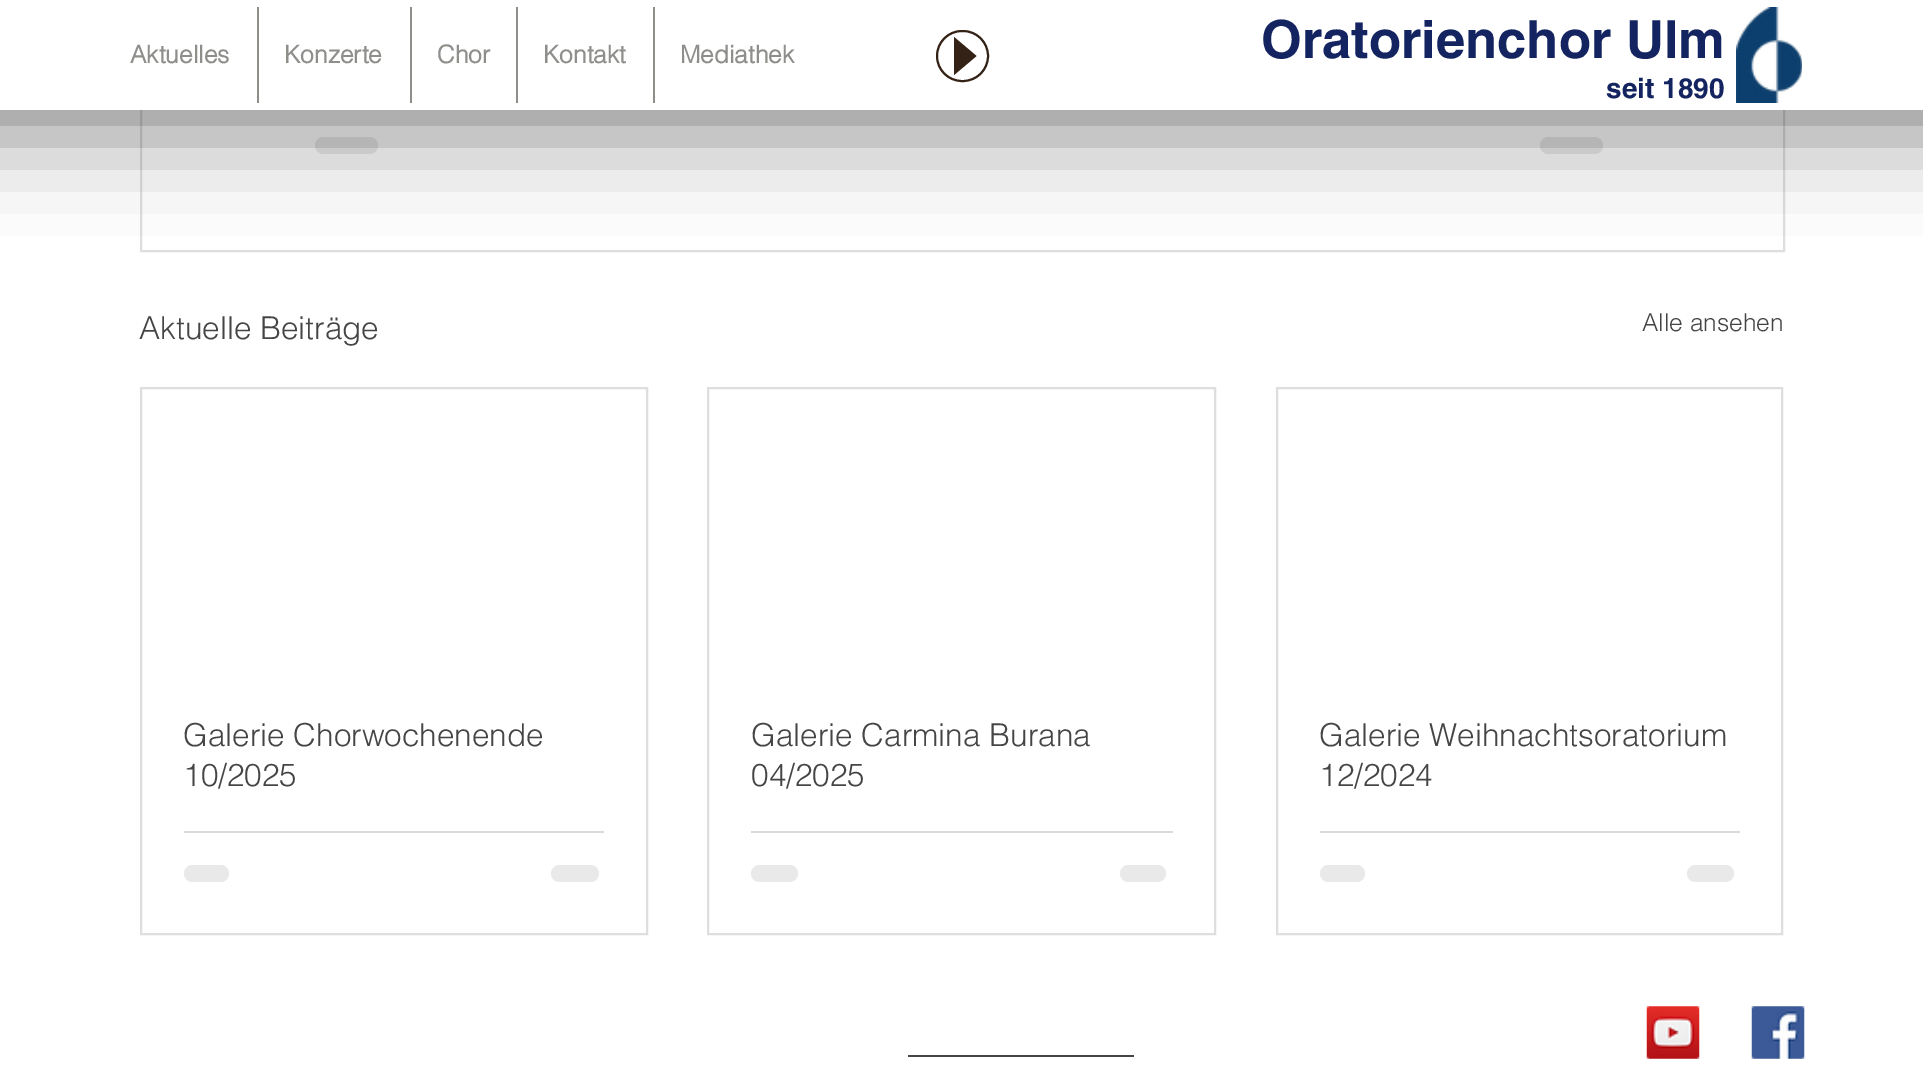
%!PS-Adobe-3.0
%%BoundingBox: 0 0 1923 1073
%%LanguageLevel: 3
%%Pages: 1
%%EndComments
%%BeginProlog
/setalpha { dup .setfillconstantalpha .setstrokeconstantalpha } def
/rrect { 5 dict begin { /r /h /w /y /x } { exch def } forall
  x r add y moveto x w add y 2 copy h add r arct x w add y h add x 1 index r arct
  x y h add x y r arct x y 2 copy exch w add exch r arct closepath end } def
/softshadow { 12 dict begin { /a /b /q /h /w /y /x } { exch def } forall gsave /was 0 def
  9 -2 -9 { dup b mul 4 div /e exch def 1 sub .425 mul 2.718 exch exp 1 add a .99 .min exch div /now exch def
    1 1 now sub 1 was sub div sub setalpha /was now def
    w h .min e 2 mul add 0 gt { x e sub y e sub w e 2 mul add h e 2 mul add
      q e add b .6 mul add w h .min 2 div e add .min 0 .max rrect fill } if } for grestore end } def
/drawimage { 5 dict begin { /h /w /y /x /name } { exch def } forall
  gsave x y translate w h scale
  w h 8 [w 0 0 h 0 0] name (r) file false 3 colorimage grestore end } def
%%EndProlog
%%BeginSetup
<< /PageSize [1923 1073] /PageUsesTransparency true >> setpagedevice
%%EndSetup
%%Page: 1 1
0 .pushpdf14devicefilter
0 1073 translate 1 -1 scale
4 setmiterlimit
1 setgray
0 0 1923 1073 rectfill
0.871 setgray
2 setlinewidth
141 -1 1643 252 rectstroke
0.914 setgray
315 137 63 17 8.5 rrect fill
1540 137 63 17 8.5 rrect fill
0 setgray
-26 -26 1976 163 0 44 0.44 softshadow
1 setgray
0 0 1923 110 rectfill
0.557 0.557 0.545 setrgbcolor
257 7 2 96 rectfill
410 7 2 96 rectfill
516 7 2 96 rectfill
653 7 2 96 rectfill
0.204 0.133 0.086 setrgbcolor
937 31 51 50 25 rrect stroke
newpath 954 75 moveto 954 37 lineto 976.5 56 lineto closepath fill
(images/1.raw) 1736 7 66 96 drawimage
0.871 setgray
141 388 506 546 rectstroke
0.855 setgray
184 831 420 2 rectfill
0.914 setgray
184 865 45 17 8.5 rrect fill
551 865 48 17 8.5 rrect fill
0.871 setgray
708 388 507 546 rectstroke
0.855 setgray
751 831 422 2 rectfill
0.914 setgray
751 865 47 17 8.5 rrect fill
1120 865 46 17 8.5 rrect fill
0.871 setgray
1277 388 505 546 rectstroke
0.855 setgray
1320 831 420 2 rectfill
0.914 setgray
1320 865 45 17 8.5 rrect fill
1687 865 47 17 8.5 rrect fill
0.271 setgray
908 1055 226 2 rectfill
(images/2.raw) 1646 1006 54 53 drawimage
(images/3.raw) 1751 1006 54 53 drawimage
/helvetica-Bold [24.5 0 0 -24.5 0 0] selectfont
0.557 0.557 0.545 setrgbcolor
130 63 moveto (Aktuelles) show
284 63 moveto (Konzerte) show
437 63 moveto (Chor) show
543 63 moveto (Kontakt) show
680 63 moveto (Mediathek) show
/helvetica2-Bold [52.5 0 0 -52.5 0 0] selectfont
0.075 0.141 0.376 setrgbcolor
1261 58 moveto (Oratorienchor Ulm) show
/helvetica2-Bold [28 0 0 -28 0 0] selectfont
1606 98 moveto (seit 1890) show
/helvetica-Light [31.5 0 0 -31.5 0 0] selectfont
0.271 setgray
139 339 moveto (Aktuelle Beiträge) show
/helvetica-Light [24.5 0 0 -24.5 0 0] selectfont
1642 331 moveto (Alle ansehen) show
/helvetica-Light [31.5 0 0 -31.5 0 0] selectfont
183 746 moveto (Galerie Chorwochenende) show
183 786 moveto (10/2025) show
751 746 moveto (Galerie Carmina Burana) show
751 786 moveto (04/2025) show
1319 746 moveto (Galerie Weihnachtsoratorium) show
1319 786 moveto (12/2024) show
.poppdf14devicefilter showpage
%%EOF
